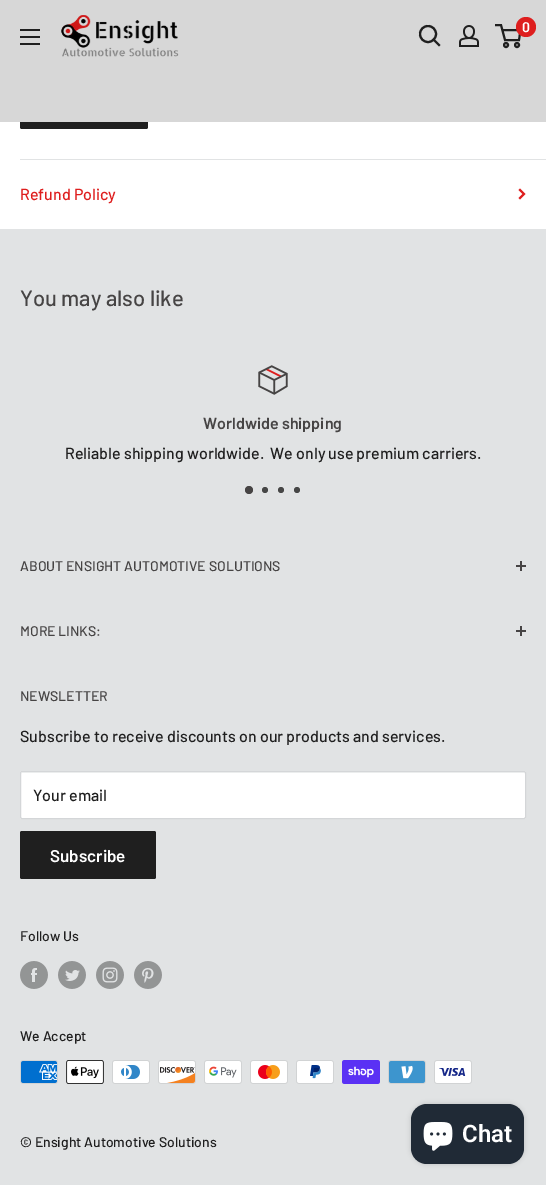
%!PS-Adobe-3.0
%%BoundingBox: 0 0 546 1185
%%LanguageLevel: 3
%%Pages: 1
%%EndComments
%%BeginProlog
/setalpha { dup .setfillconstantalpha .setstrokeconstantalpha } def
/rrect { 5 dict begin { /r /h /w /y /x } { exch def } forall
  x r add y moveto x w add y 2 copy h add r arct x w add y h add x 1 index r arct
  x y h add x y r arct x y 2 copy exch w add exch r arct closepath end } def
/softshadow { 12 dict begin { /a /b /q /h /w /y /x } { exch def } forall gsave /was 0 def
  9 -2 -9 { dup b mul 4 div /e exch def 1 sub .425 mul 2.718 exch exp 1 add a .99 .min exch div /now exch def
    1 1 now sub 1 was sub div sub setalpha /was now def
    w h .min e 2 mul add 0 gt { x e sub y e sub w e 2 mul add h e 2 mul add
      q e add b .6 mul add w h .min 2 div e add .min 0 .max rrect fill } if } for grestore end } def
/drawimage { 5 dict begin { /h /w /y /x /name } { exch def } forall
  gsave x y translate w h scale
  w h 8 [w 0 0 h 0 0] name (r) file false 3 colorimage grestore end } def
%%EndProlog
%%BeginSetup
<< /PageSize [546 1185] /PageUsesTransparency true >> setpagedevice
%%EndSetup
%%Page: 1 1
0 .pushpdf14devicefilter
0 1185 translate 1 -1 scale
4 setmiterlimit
0.882 0.89 0.894 setrgbcolor
0 0 546 1185 rectfill
1 setgray
0 122 546 107 rectfill
0.122 setgray
20 81 128 48 2 rrect fill
0.843 setgray
0 0 546 122 rectfill
(images/1.raw) 61 15 118 42 drawimage
0.122 setgray
2.1 setlinewidth
2 setlinecap
newpath 439 45 moveto 433.5 39.5 lineto stroke
0 setlinecap
newpath 428 34 8 0 360 arc closepath stroke
(images/2.raw) 459 25 20 22 drawimage
2 setlinewidth
newpath 506 45 2 0 360 arc closepath stroke
newpath 517 45 2 0 360 arc closepath stroke
newpath 502.5 30 moveto 520.5 30 lineto 519 40 lineto 505 40 lineto 501 25 lineto 495 25 lineto stroke
0.871 0.118 0.118 setrgbcolor
newpath 526 27 10 0 360 arc closepath fill
(images/3.raw) 20 29 20 16 drawimage
0.882 0.89 0.894 setrgbcolor
20 159 526 1 rectfill
0.871 0.118 0.118 setrgbcolor
2 setlinecap
newpath 520 190 moveto 524 194 lineto 520 198 lineto stroke
(images/4.raw) 258 365 30 30 drawimage
0.275 0.267 0.267 setrgbcolor
newpath 249 490 4 0 360 arc closepath fill
0.275 setgray
newpath 265 490 3 0 360 arc closepath fill
newpath 281 490 3 0 360 arc closepath fill
newpath 297 490 3 0 360 arc closepath fill
0.275 0.267 0.267 setrgbcolor
520 561 2 10 rectfill
516 565 10 2 rectfill
520 626 2 10 rectfill
516 630 10 2 rectfill
1 setgray
20 771 506 48 2 rrect fill
0.957 0.961 0.961 setrgbcolor
newpath 22 773 moveto 524 773 lineto 525 773 525 773 525 774 curveto 525 773 525 772 524 772 curveto 22 772 lineto 21 773 lineto 21 774 lineto 21 773 21 773 22 773 curveto closepath fill
0.831 0.839 0.847 setrgbcolor
1 setlinewidth
0 setlinecap
20.5 771.5 505 47 1.5 rrect stroke
0.122 setgray
20 831 136 48 2 rrect fill
(images/5.raw) 20 961 28 28 drawimage
(images/6.raw) 58 961 28 28 drawimage
(images/7.raw) 96 961 28 28 drawimage
(images/8.raw) 134 961 28 28 drawimage
(images/9.raw) 20 1060 38 24 drawimage
(images/10.raw) 66 1060 38 24 drawimage
(images/11.raw) 112 1060 38 24 drawimage
(images/12.raw) 158 1060 38 24 drawimage
(images/13.raw) 204 1060 38 24 drawimage
(images/14.raw) 250 1060 38 24 drawimage
(images/15.raw) 296 1060 38 24 drawimage
(images/16.raw) 342 1060 38 24 drawimage
(images/17.raw) 388 1060 38 24 drawimage
(images/18.raw) 434 1060 38 24 drawimage
0 setgray
411 1104 113 60 16 2.5 0.15 softshadow
0.125 0.165 0.212 setrgbcolor
411 1104 113 60 16 rrect fill
(images/19.raw) 423 1122 30 29 drawimage
/Barlow-SemiBold [14 0 0 -14 0 0] selectfont
1 setgray
522 32 moveto (0) show
/Barlow-Medium [16 0 0 -16 0 0] selectfont
0.871 0.118 0.118 setrgbcolor
20 200 moveto (Refund Policy) show
/Barlow-Medium [22 0 0 -22 0 0] selectfont
0.275 0.267 0.267 setrgbcolor
20 306 moveto (You may also like) show
/Barlow-SemiBold [16 0 0 -16 0 0] selectfont
203 429 moveto (Worldwide shipping) show
/Barlow-Medium [16 0 0 -16 0 0] selectfont
0.122 setgray
65 459 moveto (Reliable shipping worldwide.  We only use premium carriers.) show
/Barlow-Medium [14 0 0 -14 0 0] selectfont
0.275 0.267 0.267 setrgbcolor
20 571 moveto (ABOUT ENSIGHT AUTOMOTIVE SOLUTIONS) show
20 636 moveto (MORE LINKS:) show
20 701 moveto (NEWSLETTER) show
/Barlow-Medium [16 0 0 -16 0 0] selectfont
0.122 setgray
20 742 moveto (Subscribe to receive discounts on our products and services.) show
33 801 moveto (Your email) show
/Barlow-SemiBold [17 0 0 -17 0 0] selectfont
1 setgray
50 862 moveto (Subscribe) show
/Barlow-Medium [14 0 0 -14 0 0] selectfont
0.122 setgray
20 941 moveto (Follow Us) show
20 1041 moveto (We Accept) show
20 1147 moveto (© Ensight Automotive Solutions) show
/Roboto-SemiBold [24 0 0 -24 0 0] selectfont
1 setgray
462 1142 moveto (Chat) show
.poppdf14devicefilter showpage
%%EOF
